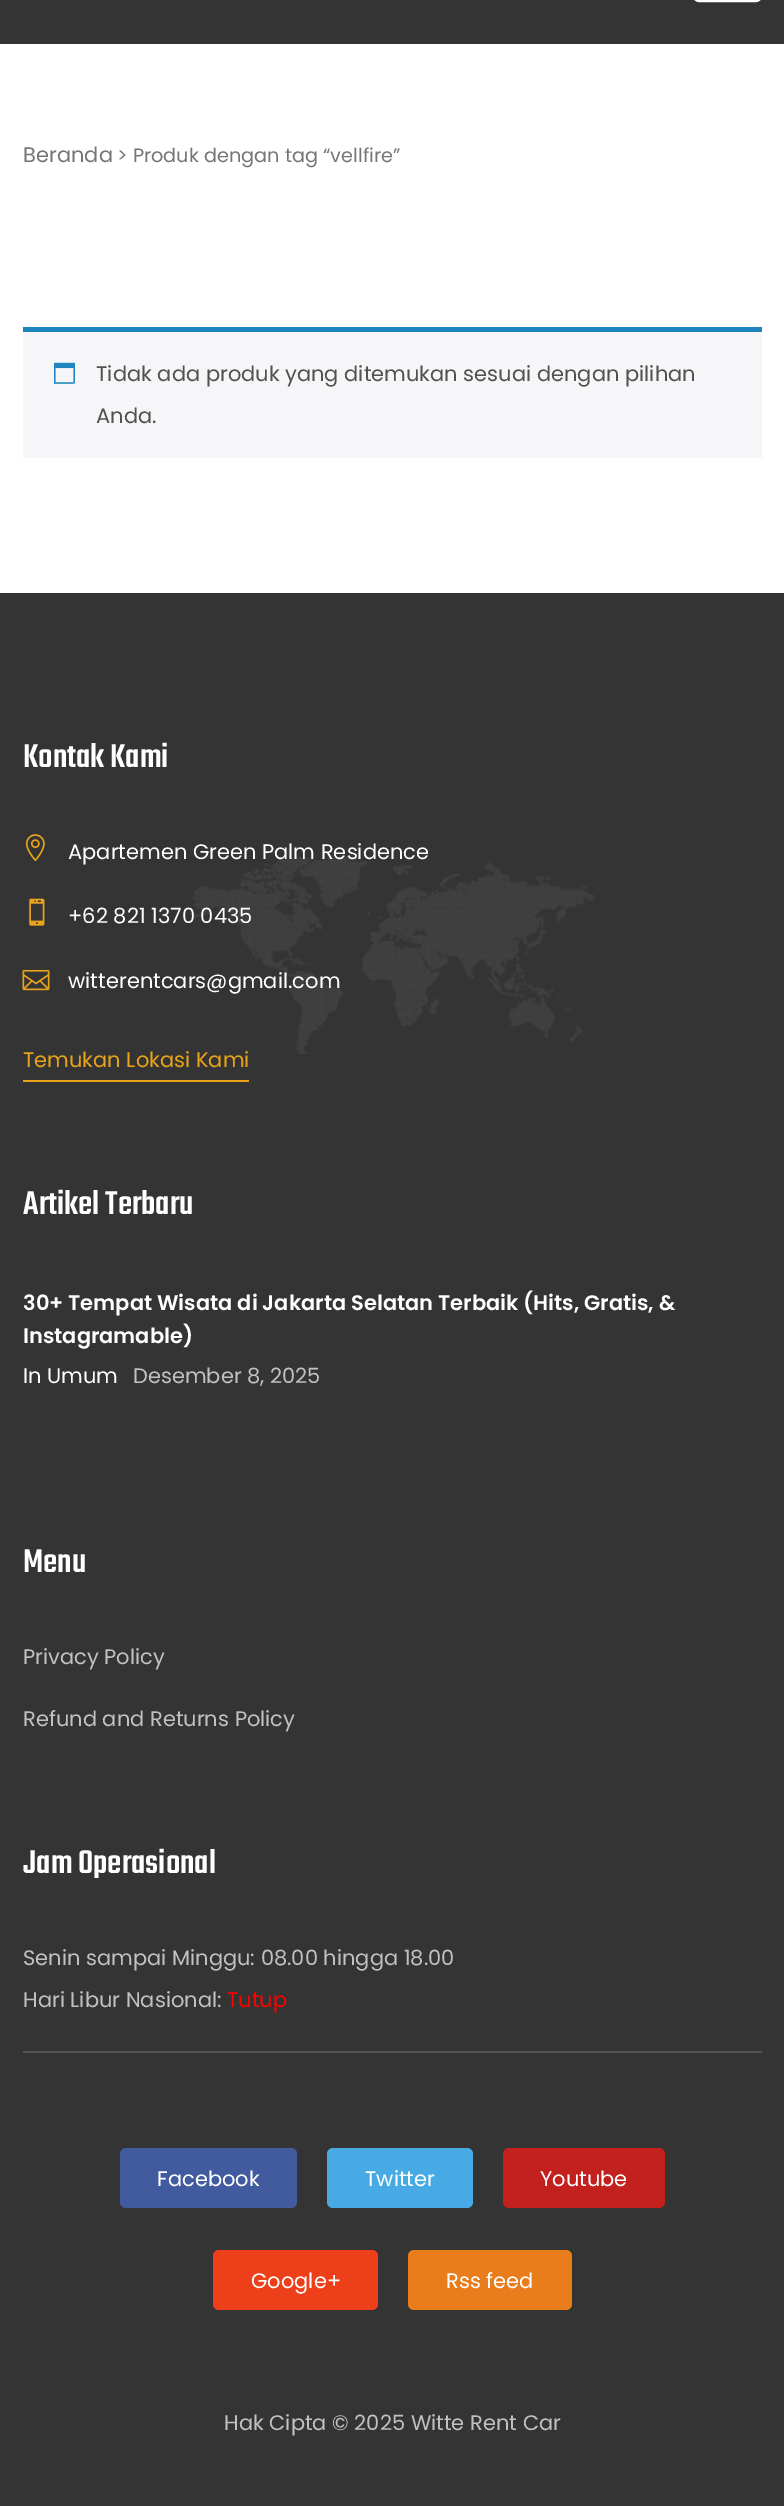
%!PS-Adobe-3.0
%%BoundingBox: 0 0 784 2506
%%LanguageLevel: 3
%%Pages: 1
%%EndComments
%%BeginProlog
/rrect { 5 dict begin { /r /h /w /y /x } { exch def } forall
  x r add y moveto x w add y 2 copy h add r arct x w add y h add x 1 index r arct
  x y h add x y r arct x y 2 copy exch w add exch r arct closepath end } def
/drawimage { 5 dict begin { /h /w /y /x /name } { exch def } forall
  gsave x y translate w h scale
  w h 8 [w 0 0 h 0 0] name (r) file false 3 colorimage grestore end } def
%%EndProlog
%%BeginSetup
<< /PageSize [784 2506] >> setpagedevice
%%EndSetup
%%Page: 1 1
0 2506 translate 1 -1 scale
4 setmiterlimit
1 setgray
0 0 784 2506 rectfill
0.204 setgray
0 0 784 44 rectfill
1 setgray
2 setlinewidth
694 -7 67 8 5 rrect stroke
0.965 0.961 0.973 setrgbcolor
23 332 739 126 rectfill
0.118 0.522 0.745 setrgbcolor
23 327 739 5 rectfill
(images/1.raw) 54 362 21 22 drawimage
0.204 setgray
0 593 784 1913 rectfill
(images/2.raw) 191 856 405 198 drawimage
(images/3.raw) 25 834 20 28 drawimage
(images/4.raw) 29 898 16 28 drawimage
(images/5.raw) 22 969 28 22 drawimage
0.914 0.639 0.106 setrgbcolor
23 1080 226 2 rectfill
0.322 setgray
23 2051 739 2 rectfill
0.255 0.357 0.62 setrgbcolor
120 2148 177 60 6 rrect fill
0.278 0.667 0.894 setrgbcolor
327 2148 146 60 6 rrect fill
0.765 0.129 0.118 setrgbcolor
503 2148 162 60 6 rrect fill
0.929 0.251 0.102 setrgbcolor
213 2250 165 60 6 rrect fill
0.914 0.486 0.106 setrgbcolor
408 2250 164 60 6 rrect fill
/Poppins-Regular [21 0 0 -21 0 0] selectfont
0.463 setgray
23 162 moveto (Beranda) show
/Poppins-Regular [19.3 0 0 -19.3 0 0] selectfont
117 162 moveto (> Produk dengan tag “vellfire”) show
/Poppins-Regular [21 0 0 -21 0 0] selectfont
0.318 setgray
96 381 moveto (Tidak ada produk yang ditemukan sesuai dengan pilihan) show
96 423 moveto (Anda.) show
/Teko-Medium [36 0 0 -36 0 0] selectfont
1 setgray
23 767 moveto (Kontak Kami) show
/Poppins-Regular [21 0 0 -21 0 0] selectfont
68 859 moveto (Apartemen Green Palm Residence) show
68 923 moveto (+62 821 1370 0435) show
68 988 moveto (witterentcars@gmail.com) show
0.914 0.639 0.106 setrgbcolor
23 1067 moveto (Temukan Lokasi Kami) show
/Teko-Medium [36 0 0 -36 0 0] selectfont
1 setgray
23 1214 moveto (Artikel Terbaru) show
/Poppins-SemiBold [21 0 0 -21 0 0] selectfont
23 1310 moveto (30+ Tempat Wisata di Jakarta Selatan Terbaik \(Hits, Gratis, &) show
23 1343 moveto (Instagramable\)) show
/Poppins-Regular [21 0 0 -21 0 0] selectfont
23 1383 moveto (In Umum) show
0.757 setgray
133 1383 moveto (Desember 8, 2025) show
/Teko-Medium [36 0 0 -36 0 0] selectfont
1 setgray
23 1572 moveto (Menu) show
/Poppins-Regular [21 0 0 -21 0 0] selectfont
0.757 setgray
23 1664 moveto (Privacy Policy) show
23 1726 moveto (Refund and Returns Policy) show
/Teko-Medium [36 0 0 -36 0 0] selectfont
1 setgray
23 1873 moveto (Jam Operasional) show
/Poppins-Regular [21 0 0 -21 0 0] selectfont
0.757 setgray
23 1965 moveto (Senin sampai Minggu: 08.00 hingga 18.00) show
23 2007 moveto (Hari Libur Nasional:) show
1 0 0 setrgbcolor
227 2007 moveto (Tutup) show
1 setgray
157 2186 moveto (Facebook) show
365 2186 moveto (Twitter) show
540 2186 moveto (Youtube) show
251 2288 moveto (Google+) show
446 2288 moveto (Rss feed) show
0.757 setgray
224 2430 moveto (Hak Cipta © 2025 Witte Rent Car) show
showpage
%%EOF
